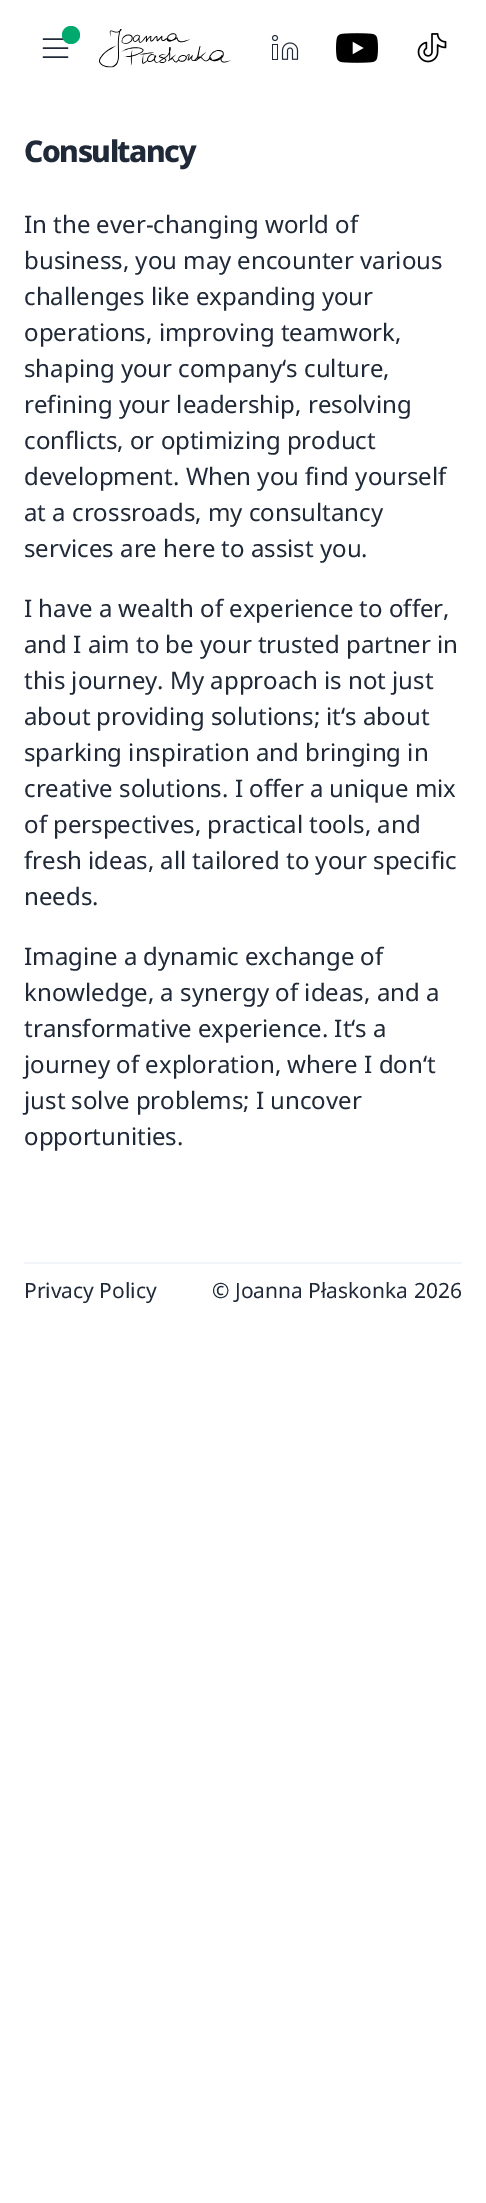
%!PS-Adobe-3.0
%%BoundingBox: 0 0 486 2203
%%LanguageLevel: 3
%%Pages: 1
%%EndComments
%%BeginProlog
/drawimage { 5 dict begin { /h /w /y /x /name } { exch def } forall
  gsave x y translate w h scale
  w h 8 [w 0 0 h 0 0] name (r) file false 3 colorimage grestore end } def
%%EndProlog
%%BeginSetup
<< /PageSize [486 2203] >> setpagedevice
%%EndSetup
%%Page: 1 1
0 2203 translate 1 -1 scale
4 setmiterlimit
1 setgray
0 0 486 2203 rectfill
0.122 0.161 0.216 setrgbcolor
1.5 setlinewidth
1 setlinecap
1 setlinejoin
newpath 43.5 48 moveto 67.5 48 lineto 43.5 39 moveto 67.5 39 lineto 43.5 57 moveto 67.5 57 lineto stroke
0 0.663 0.431 setrgbcolor
newpath 71 35 9 0 360 arc closepath fill
(images/1.raw) 99 29 132 39 drawimage
(images/2.raw) 271 34 28 26 drawimage
(images/3.raw) 336 33 42 30 drawimage
(images/4.raw) 417 33 30 30 drawimage
0.945 0.961 0.976 setrgbcolor
24 1262 438 2 rectfill
/NotoSans-ExtraBold [30 0 0 -30 0 0] selectfont
0.122 0.161 0.216 setrgbcolor
24 162 moveto -1.5 0 (Consultancy) ashow
/NotoSans-Regular [24 0 0 -24 0 0] selectfont
24 233 moveto (In the ever-changing world of) show
24 269 moveto (business, you may encounter various) show
24 305 moveto (challenges like expanding your) show
24 341 moveto (operations, improving teamwork,) show
24 377 moveto (shaping your company‘s culture,) show
24 413 moveto (refining your leadership, resolving) show
24 449 moveto (conflicts, or optimizing product) show
24 485 moveto (development. When you find yourself) show
24 521 moveto (at a crossroads, my consultancy) show
24 557 moveto (services are here to assist you.) show
24 617 moveto (I have a wealth of experience to offer,) show
24 653 moveto (and I aim to be your trusted partner in) show
24 689 moveto (this journey. My approach is not just) show
24 725 moveto (about providing solutions; it‘s about) show
24 761 moveto (sparking inspiration and bringing in) show
24 797 moveto (creative solutions. I offer a unique mix) show
24 833 moveto (of perspectives, practical tools, and) show
24 869 moveto (fresh ideas, all tailored to your specific) show
24 905 moveto (needs.) show
24 965 moveto (Imagine a dynamic exchange of) show
24 1001 moveto (knowledge, a synergy of ideas, and a) show
24 1037 moveto (transformative experience. It‘s a) show
24 1073 moveto (journey of exploration, where I don‘t) show
24 1109 moveto (just solve problems; I uncover) show
24 1145 moveto (opportunities.) show
/NotoSans-Regular [21 0 0 -21 0 0] selectfont
24 1298 moveto (Privacy Policy) show
212 1298 moveto (© Joanna Płaskonka 2026) show
showpage
%%EOF
